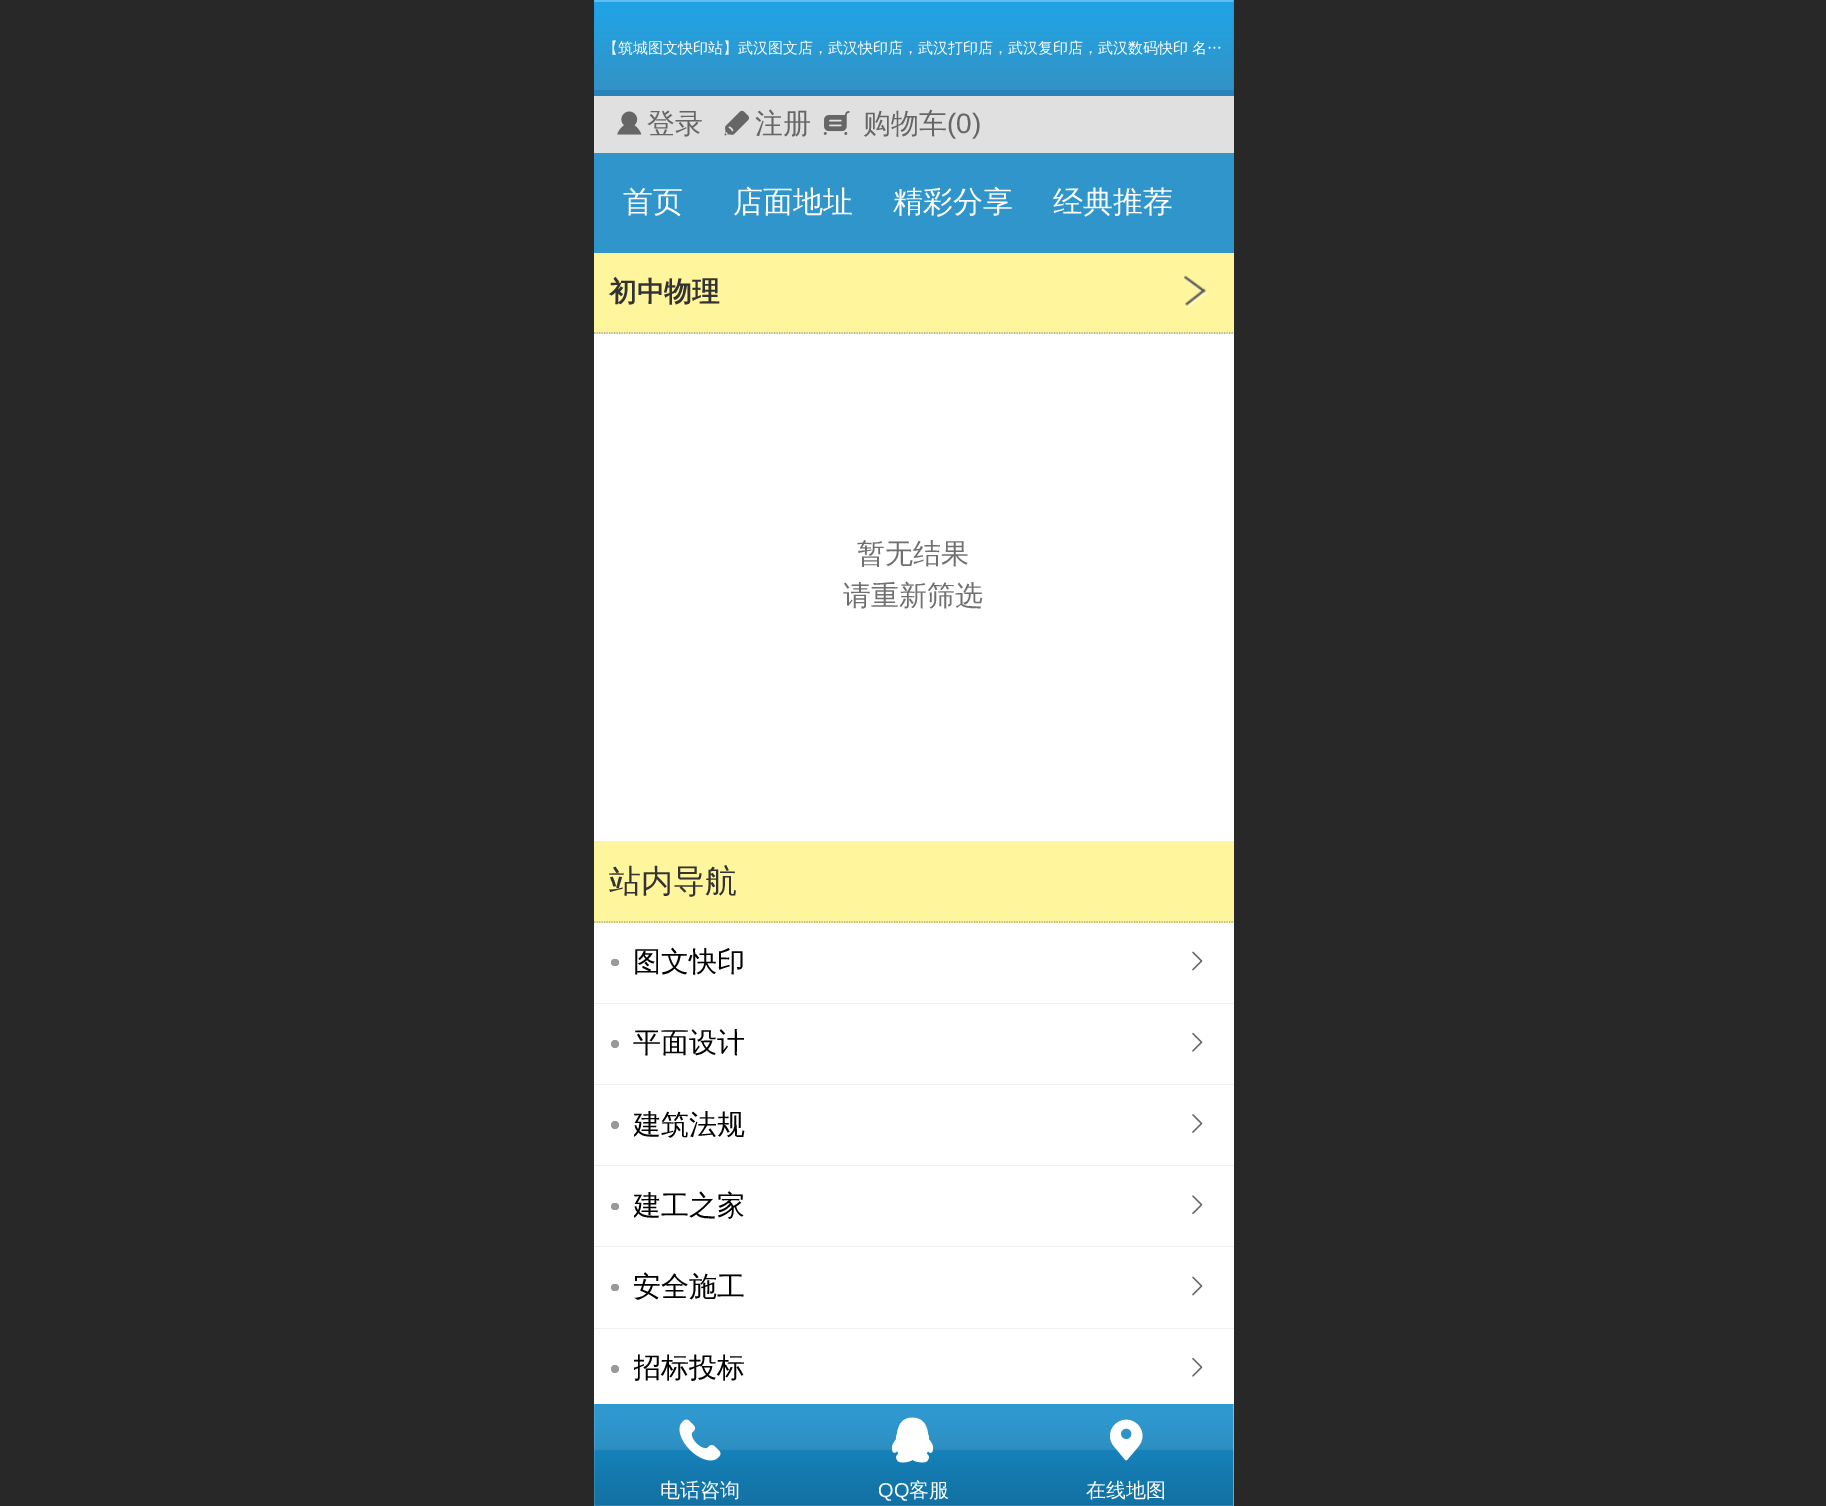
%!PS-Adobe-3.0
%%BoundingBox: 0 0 1826 1506
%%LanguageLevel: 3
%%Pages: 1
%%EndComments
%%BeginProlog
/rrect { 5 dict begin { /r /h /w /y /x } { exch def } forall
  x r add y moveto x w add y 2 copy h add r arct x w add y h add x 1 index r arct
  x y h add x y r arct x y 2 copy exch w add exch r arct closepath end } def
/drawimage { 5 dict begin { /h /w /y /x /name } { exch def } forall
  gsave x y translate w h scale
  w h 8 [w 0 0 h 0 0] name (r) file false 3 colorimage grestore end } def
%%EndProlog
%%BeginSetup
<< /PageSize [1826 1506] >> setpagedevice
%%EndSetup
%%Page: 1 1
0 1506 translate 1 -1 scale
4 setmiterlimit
1 setgray
0 0 1826 1506 rectfill
0.157 setgray
0 0 594 1506 rectfill
0.161 0.51 0.729 setrgbcolor
594 0 640 96 rectfill
(images/1.raw) 594 0 640 90 drawimage
0.878 setgray
594 96 640 57 rectfill
(images/2.raw) 617 111 25 24 drawimage
(images/3.raw) 724 110 25 26 drawimage
(images/4.raw) 823 111 27 24 drawimage
0.184 0.584 0.792 setrgbcolor
594 153 640 100 rectfill
1 0.961 0.612 setrgbcolor
594 253 640 81 rectfill
0.624 setgray
1.2 setlinewidth
[1.25 1.25] 0 setdash
newpath 594 333 moveto 1234 333 lineto stroke
(images/5.raw) 1183 275 24 33 drawimage
1 0.961 0.612 setrgbcolor
594 841 640 82 rectfill
0.624 setgray
newpath 594 922 moveto 1234 922 lineto stroke
0.6 setgray
611 959 8 7 3.5 rrect fill
(images/6.raw) 1192 951 11 20 drawimage
0.941 setgray
594 1003 640 1 rectfill
0.6 setgray
newpath 615 1044 4 0 360 arc closepath fill
(images/7.raw) 1192 1032 11 20 drawimage
0.941 setgray
594 1084 640 1 rectfill
0.6 setgray
newpath 615 1125 4 0 360 arc closepath fill
(images/8.raw) 1192 1114 11 19 drawimage
0.941 setgray
594 1165 640 1 rectfill
0.6 setgray
611 1203 8 7 3.5 rrect fill
(images/9.raw) 1192 1195 11 20 drawimage
0.941 setgray
594 1246 640 1 rectfill
0.6 setgray
611 1284 8 7 3.5 rrect fill
(images/6.raw) 1192 1276 11 20 drawimage
0.941 setgray
594 1328 640 1 rectfill
0.6 setgray
newpath 615 1369 4 0 360 arc closepath fill
(images/7.raw) 1192 1357 11 20 drawimage
0.941 setgray
594 1409 640 1 rectfill
594 1490 640 1 rectfill
(images/10.raw) 594 1404 640 102 drawimage
(images/11.raw) 679 1419 42 42 drawimage
(images/12.raw) 891 1417 43 46 drawimage
(images/13.raw) 1110 1419 33 42 drawimage
0.157 setgray
1234 0 592 1506 rectfill
/WenQuanYiZenHei-Medium [15 0 0 -15 0 0] selectfont
1 setgray
603 53 moveto (【筑城图文快印站】武汉图文店，武汉快印店，武汉打印店，武汉复印店，武汉数码快印 名…) show
/WenQuanYiZenHei-Medium [28 0 0 -28 0 0] selectfont
0.4 setgray
647 133 moveto (登录) show
755 133 moveto (注册) show
863 133 moveto (购物车) show
/LiberationSans-Regular [28 0 0 -28 0 0] selectfont
947 133 moveto (\(0\)) show
/WenQuanYiZenHei-Medium [30 0 0 -30 0 0] selectfont
1 setgray
623 212 moveto (首页) show
733 212 moveto (店面地址) show
893 212 moveto (精彩分享) show
1053 212 moveto (经典推荐) show
/WenQuanYiZenHei-Bold [27.5 0 0 -27.5 0 0] selectfont
0.2 setgray
609 301 moveto (初中物理) show
/WenQuanYiZenHei-Medium [28 0 0 -28 0 0] selectfont
0.439 setgray
857 563 moveto (暂无结果) show
843 605 moveto (请重新筛选) show
/WenQuanYiZenHei-Medium [32 0 0 -32 0 0] selectfont
0.2 setgray
609 892 moveto (站内导航) show
/WenQuanYiZenHei-Medium [28 0 0 -28 0 0] selectfont
0 setgray
633 971 moveto (图文快印) show
633 1052 moveto (平面设计) show
gsave
634 1085 530 80 rectclip
633 1134 moveto (建筑法规) show
grestore
gsave
634 1166 530 80 rectclip
633 1215 moveto (建工之家) show
grestore
633 1296 moveto (安全施工) show
gsave
634 1329 530 80 rectclip
633 1377 moveto (招标投标) show
grestore
/WenQuanYiZenHei-Medium [20 0 0 -20 0 0] selectfont
1 setgray
660 1497 moveto (电话咨询) show
/LiberationSans-Regular [20 0 0 -20 0 0] selectfont
878 1497 moveto (QQ) show
/WenQuanYiZenHei-Medium [20 0 0 -20 0 0] selectfont
909 1497 moveto (客服) show
1086 1497 moveto (在线地图) show
showpage
%%EOF
